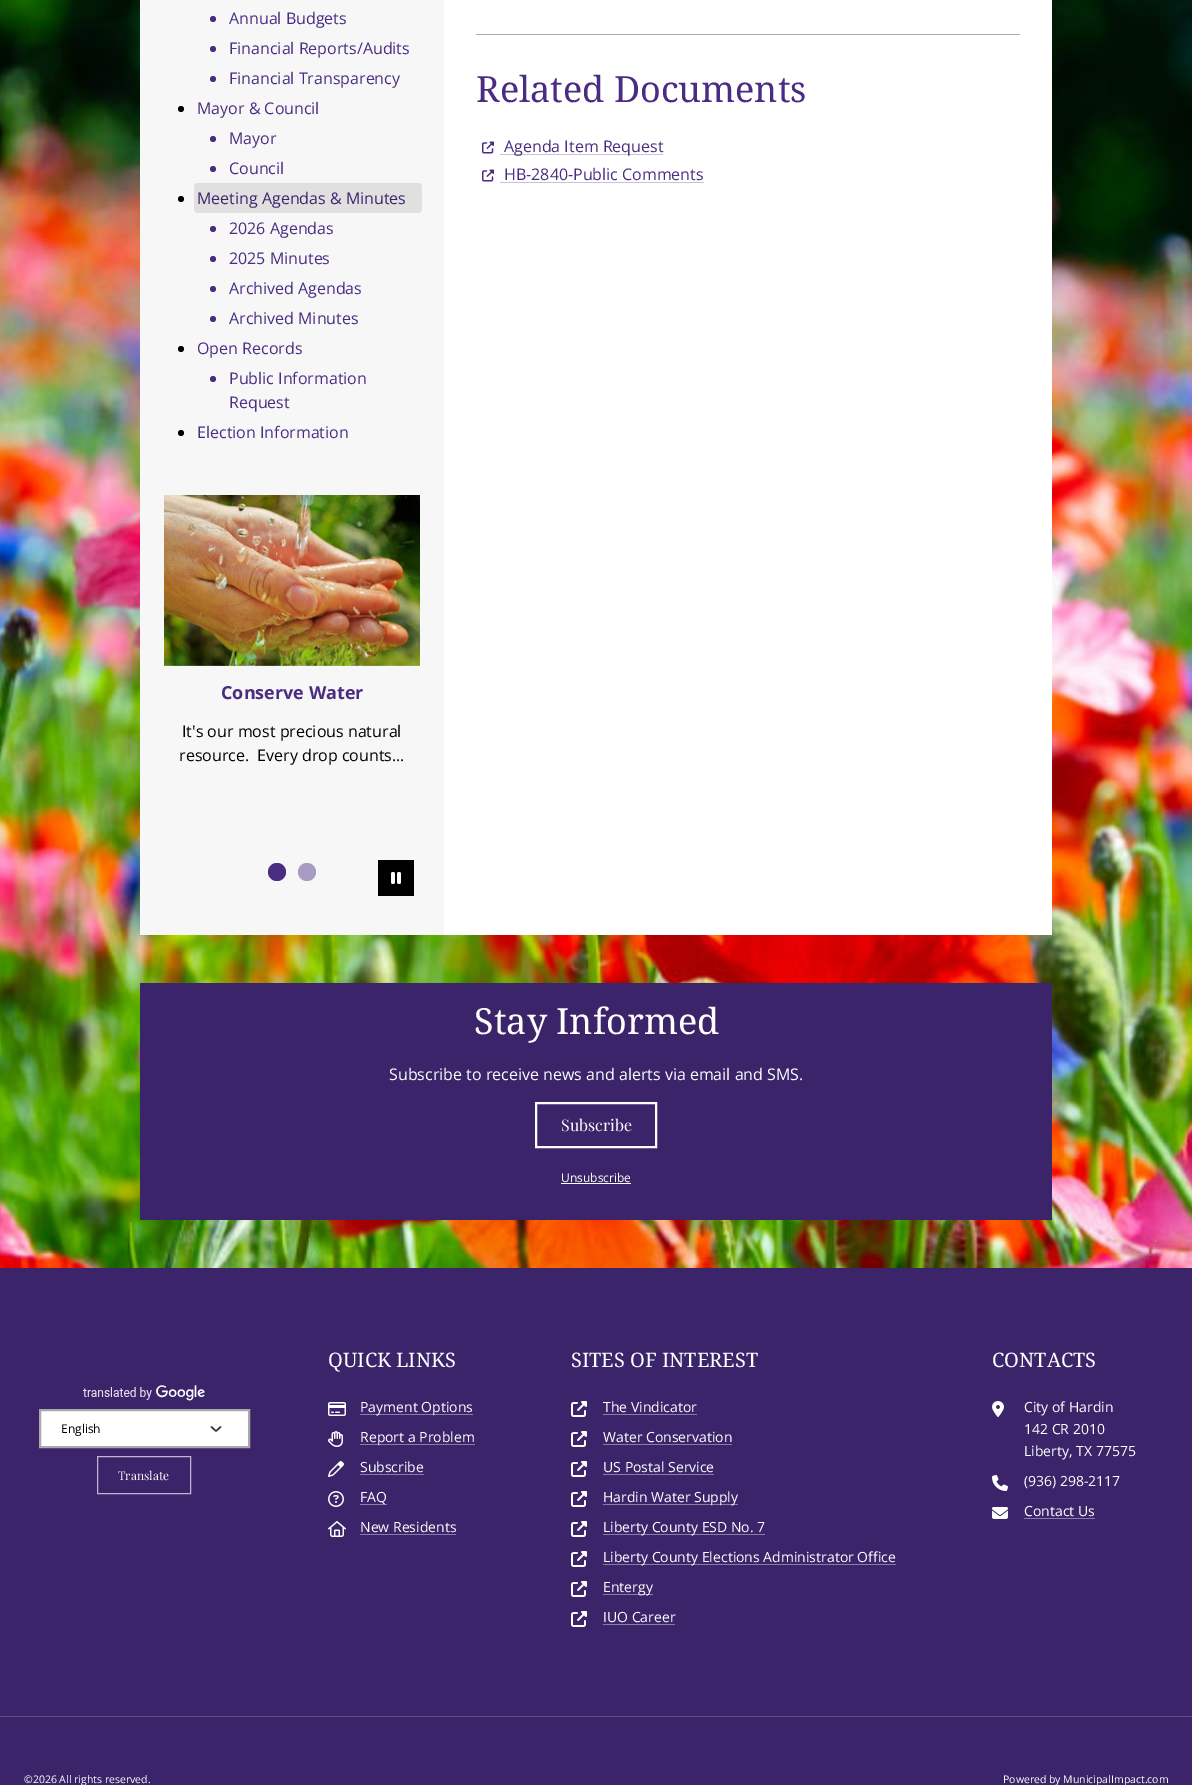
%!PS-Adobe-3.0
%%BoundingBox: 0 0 1192 1785
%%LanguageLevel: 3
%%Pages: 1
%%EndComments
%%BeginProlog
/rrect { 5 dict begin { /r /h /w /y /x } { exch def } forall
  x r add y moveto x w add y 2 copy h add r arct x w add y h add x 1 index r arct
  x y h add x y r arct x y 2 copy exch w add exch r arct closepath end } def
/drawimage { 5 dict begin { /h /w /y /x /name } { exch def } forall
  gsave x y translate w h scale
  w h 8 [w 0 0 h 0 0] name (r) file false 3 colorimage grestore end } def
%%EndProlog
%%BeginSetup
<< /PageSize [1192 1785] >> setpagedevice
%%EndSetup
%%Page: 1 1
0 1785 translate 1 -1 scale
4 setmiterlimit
1 setgray
0 0 1192 1785 rectfill
(images/1.raw) 0 0 1192 1268 drawimage
0.969 setgray
140 0 304 935 rectfill
0.29 0.176 0.514 setrgbcolor
newpath 213 19 3 0 360 arc closepath fill
newpath 213 49 3 0 360 arc closepath fill
newpath 213 79 3 0 360 arc closepath fill
0 setgray
newpath 181 109 3 0 360 arc closepath fill
0.29 0.176 0.514 setrgbcolor
newpath 213 139 3 0 360 arc closepath fill
newpath 213 169 3 0 360 arc closepath fill
0 setgray
newpath 181 199 3 0 360 arc closepath fill
0.878 setgray
194 183 228 30 4 rrect fill
0.29 0.176 0.514 setrgbcolor
newpath 213 229 3 0 360 arc closepath fill
newpath 213 259 3 0 360 arc closepath fill
newpath 213 289 3 0 360 arc closepath fill
newpath 213 319 3 0 360 arc closepath fill
0 setgray
newpath 181 349 3 0 360 arc closepath fill
0.29 0.176 0.514 setrgbcolor
newpath 213 379 3 0 360 arc closepath fill
0 setgray
newpath 181 433 3 0 360 arc closepath fill
(images/2.raw) 164 495 256 171 drawimage
0.29 0.176 0.514 setrgbcolor
newpath 277 872 9 0 360 arc closepath fill
0.663 0.612 0.765 setrgbcolor
newpath 307 872 9 0 360 arc closepath fill
0 setgray
378 860 36 36 rectfill
(images/3.raw) 391 872 10 12 drawimage
1 setgray
444 0 608 935 rectfill
0.667 setgray
476 34 544 1 rectfill
(images/4.raw) 482 141 12 13 drawimage
0.788 0.753 0.855 setrgbcolor
500 154 163 1 rectfill
(images/4.raw) 482 169 12 13 drawimage
500 182 204 1 rectfill
0.231 0.141 0.412 setrgbcolor
140 983 912 237 rectfill
1 setgray
2 setlinewidth
536 1103 120 44 rectstroke
561 1183 70 1 rectfill
0.231 0.141 0.412 setrgbcolor
0 1268 1192 517 rectfill
(images/5.raw) 83 1385 122 16 drawimage
1 setgray
41 1411 207 35 rectfill
0.212 setgray
1.5 setlinewidth
1 setlinecap
1 setlinejoin
newpath 211.5 1427 moveto 216 1431 lineto 220.5 1427 lineto stroke
0.667 setgray
2 setlinewidth
0 setlinecap
0 setlinejoin
40 1410 209 37 rectstroke
0.753 0.714 0.831 setrgbcolor
1 setlinewidth
97.5 1456.5 93 37 rectstroke
(images/6.raw) 328 1402 18 14 drawimage
0.537 0.486 0.647 setrgbcolor
360 1414 113 1 rectfill
(images/7.raw) 328 1431 15 16 drawimage
360 1444 115 1 rectfill
(images/8.raw) 328 1461 16 16 drawimage
360 1474 64 1 rectfill
(images/9.raw) 328 1491 16 16 drawimage
360 1504 27 1 rectfill
(images/10.raw) 328 1521 18 16 drawimage
360 1534 96 1 rectfill
(images/11.raw) 571 1401 16 16 drawimage
603 1414 94 1 rectfill
(images/11.raw) 571 1431 16 16 drawimage
603 1444 129 1 rectfill
(images/11.raw) 571 1461 16 16 drawimage
603 1474 111 1 rectfill
(images/11.raw) 571 1491 16 16 drawimage
603 1504 135 1 rectfill
(images/11.raw) 571 1521 16 16 drawimage
603 1534 162 1 rectfill
(images/11.raw) 571 1551 16 16 drawimage
603 1564 293 1 rectfill
(images/11.raw) 571 1581 16 16 drawimage
603 1594 50 1 rectfill
(images/11.raw) 571 1611 16 16 drawimage
603 1624 72 1 rectfill
(images/12.raw) 992 1401 12 16 drawimage
(images/13.raw) 992 1475 16 16 drawimage
(images/14.raw) 992 1507 16 12 drawimage
1024 1518 71 1 rectfill
0.384 0.314 0.529 setrgbcolor
0 1716 1192 1 rectfill
/OpenSans-Regular [16 0 0 -16 0 0] selectfont
0.29 0.176 0.514 setrgbcolor
229 24 moveto (Annual Budgets) show
229 54 moveto (Financial Reports/Audits) show
229 84 moveto (Financial Transparency) show
197 114 moveto (Mayor & Council) show
229 144 moveto (Mayor) show
229 174 moveto (Council) show
0.239 0.145 0.424 setrgbcolor
197 204 moveto (Meeting Agendas & Minutes) show
0.29 0.176 0.514 setrgbcolor
229 234 moveto (2026 Agendas) show
229 264 moveto (2025 Minutes) show
229 294 moveto (Archived Agendas) show
229 324 moveto (Archived Minutes) show
197 354 moveto (Open Records) show
229 384 moveto (Public Information) show
229 408 moveto (Request) show
197 438 moveto (Election Information) show
/OpenSans-Bold [18 0 0 -18 0 0] selectfont
221 699 moveto (Conserve Water) show
/OpenSans-Regular [16 0 0 -16 0 0] selectfont
0 setgray
182 737 moveto (It's our most precious natural) show
179 761 moveto (resource.  Every drop counts...) show
/NotoSerif-Regular [36 0 0 -36 0 0] selectfont
0.29 0.176 0.514 setrgbcolor
476 102 moveto (Related Documents) show
/OpenSans-Regular [16 0 0 -16 0 0] selectfont
504 152 moveto (Agenda Item Request) show
504 180 moveto (HB-2840-Public Comments) show
/NotoSerif-Regular [36 0 0 -36 0 0] selectfont
1 setgray
474 1034 moveto (Stay Informed) show
/OpenSans-Regular [16 0 0 -16 0 0] selectfont
389 1080 moveto (Subscribe to receive news and alerts via email and SMS.) show
/PlayfairDisplay-Regular [16 0 0 -16 0 0] selectfont
561 1131 moveto (Subscribe) show
/OpenSans-Regular [12 0 0 -12 0 0] selectfont
561 1182 moveto (Unsubscribe) show
0 setgray
61 1433 moveto (English) show
/PlayfairDisplay-Regular [12 0 0 -12 0 0] selectfont
1 setgray
118 1480 moveto (Translate) show
/NotoSerif-Regular [20 0 0 -20 0 0] selectfont
328 1367 moveto (QUICK LINKS) show
/OpenSans-Regular [14 0 0 -14 0 0] selectfont
360 1412 moveto (Payment Options) show
360 1442 moveto (Report a Problem) show
360 1472 moveto (Subscribe) show
360 1502 moveto (FAQ) show
360 1532 moveto (New Residents) show
/NotoSerif-Regular [20 0 0 -20 0 0] selectfont
571 1367 moveto (SITES OF INTEREST) show
/OpenSans-Regular [14 0 0 -14 0 0] selectfont
603 1412 moveto (The Vindicator) show
603 1442 moveto (Water Conservation) show
603 1472 moveto (US Postal Service) show
603 1502 moveto (Hardin Water Supply) show
603 1532 moveto (Liberty County ESD No. 7) show
603 1562 moveto (Liberty County Elections Administrator Office) show
603 1592 moveto (Entergy) show
603 1622 moveto (IUO Career) show
/NotoSerif-Regular [20 0 0 -20 0 0] selectfont
992 1367 moveto (CONTACTS) show
/OpenSans-Regular [14 0 0 -14 0 0] selectfont
1024 1412 moveto (City of Hardin) show
1024 1434 moveto (142 CR 2010) show
1024 1456 moveto (Liberty, TX 77575) show
1024 1486 moveto (\(936\) 298-2117) show
1024 1516 moveto (Contact Us) show
/OpenSans-Regular [10.5 0 0 -10.5 0 0] selectfont
24 1783 moveto (©2026 All rights reserved.) show
1003 1783 moveto (Powered by MunicipalImpact.com) show
showpage
%%EOF
